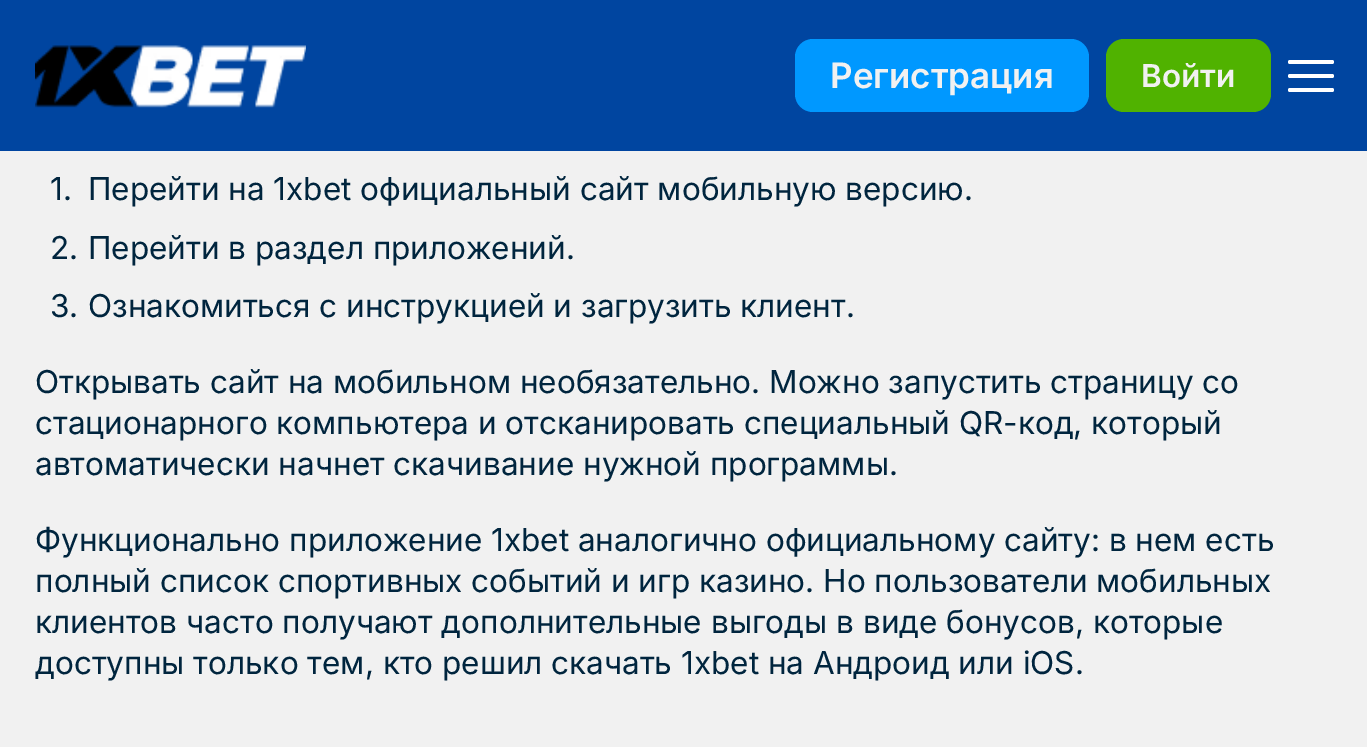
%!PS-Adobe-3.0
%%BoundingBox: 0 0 1367 747
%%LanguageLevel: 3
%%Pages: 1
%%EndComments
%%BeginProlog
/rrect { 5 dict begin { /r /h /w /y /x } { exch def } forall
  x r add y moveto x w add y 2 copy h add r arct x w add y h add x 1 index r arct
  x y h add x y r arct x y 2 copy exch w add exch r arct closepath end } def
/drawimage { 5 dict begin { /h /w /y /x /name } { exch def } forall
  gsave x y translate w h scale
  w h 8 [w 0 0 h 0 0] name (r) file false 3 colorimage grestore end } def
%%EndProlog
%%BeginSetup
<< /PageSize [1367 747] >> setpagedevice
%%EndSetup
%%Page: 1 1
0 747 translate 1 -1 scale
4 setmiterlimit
0.945 setgray
0 0 1367 747 rectfill
0 0.271 0.627 setrgbcolor
0 0 1367 151 rectfill
(images/1.raw) 35 45 271 63 drawimage
0 0.596 1 setrgbcolor
795 39 294 73 18 rrect fill
0.314 0.698 0 setrgbcolor
1106 39 165 73 18 rrect fill
1 setgray
1288 60 46 4 2 rrect fill
1288 74 46 4 2 rrect fill
1288 88 46 4 2 rrect fill
/Inter-SemiBold [35 0 0 -35 0 0] selectfont
0.945 setgray
830 88 moveto (Регистрация) show
/Inter-SemiBold [31.5 0 0 -31.5 0 0] selectfont
1141 87 moveto (Войти) show
/Inter-Regular [31.5 0 0 -31.5 0 0] selectfont
0 0.145 0.243 setrgbcolor
50 200 moveto (1.) show
88 200 moveto (Перейти на 1xbet официальный сайт мобильную версию.) show
50 259 moveto (2.) show
88 259 moveto (Перейти в раздел приложений.) show
50 317 moveto (3.) show
88 317 moveto (Ознакомиться с инструкцией и загрузить клиент.) show
35 393 moveto (Открывать сайт на мобильном необязательно. Можно запустить страницу со) show
35 434 moveto (стационарного компьютера и отсканировать специальный QR-код, который) show
35 475 moveto (автоматически начнет скачивание нужной программы.) show
35 551 moveto (Функционально приложение 1xbet аналогично официальному сайту: в нем есть) show
35 592 moveto (полный список спортивных событий и игр казино. Но пользователи мобильных) show
35 633 moveto (клиентов часто получают дополнительные выгоды в виде бонусов, которые) show
35 674 moveto (доступны только тем, кто решил скачать 1xbet на Андроид или iOS.) show
showpage
%%EOF
